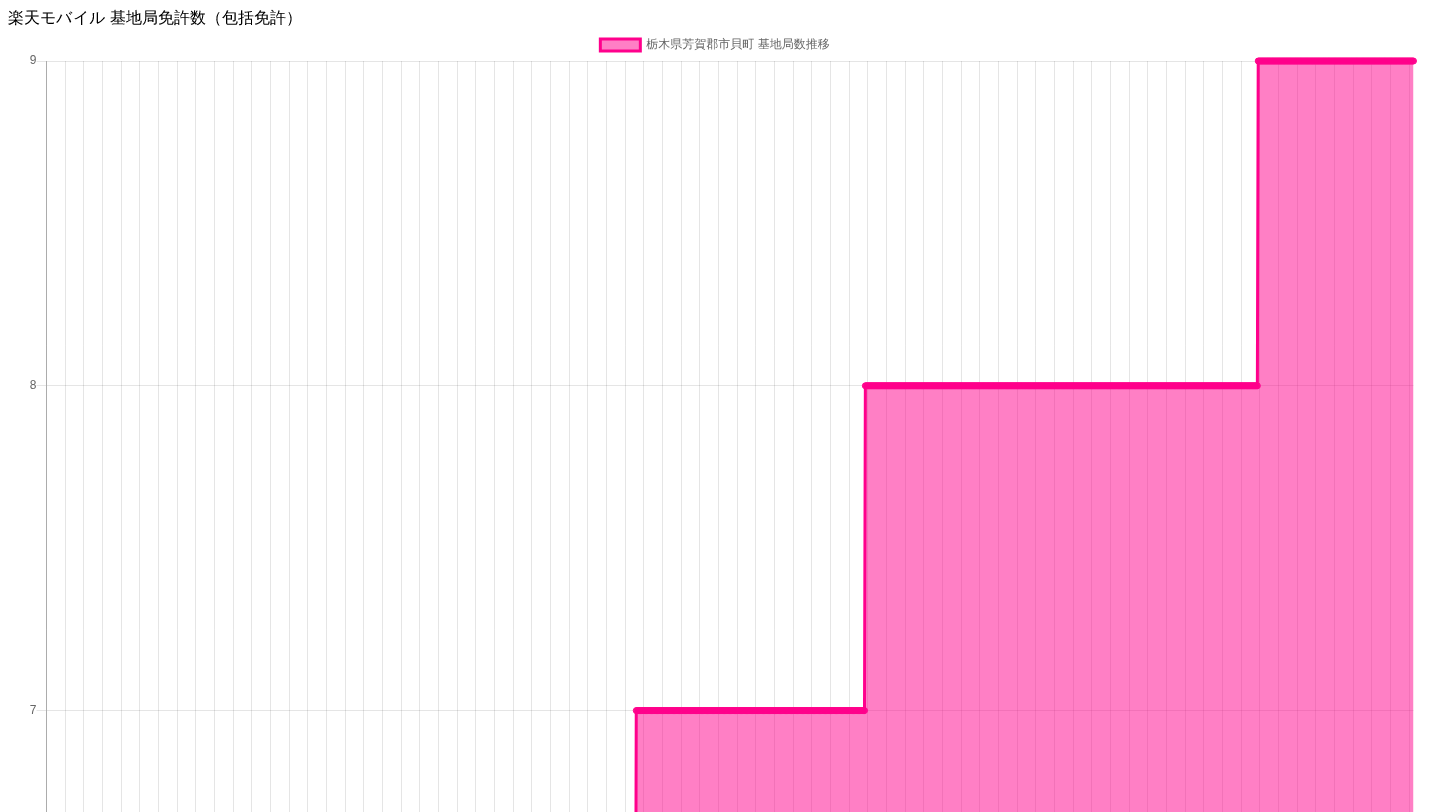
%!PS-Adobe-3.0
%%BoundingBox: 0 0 1430 812
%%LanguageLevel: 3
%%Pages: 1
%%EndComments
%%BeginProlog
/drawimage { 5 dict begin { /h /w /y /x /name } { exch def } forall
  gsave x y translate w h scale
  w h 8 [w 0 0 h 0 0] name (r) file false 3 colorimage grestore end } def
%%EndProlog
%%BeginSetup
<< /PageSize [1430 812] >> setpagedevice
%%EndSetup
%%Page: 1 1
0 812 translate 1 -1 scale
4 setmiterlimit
1 setgray
0 0 1430 812 rectfill
(images/1.raw) 30 37 1387 775 drawimage
/WenQuanYiZenHei-Medium [16 0 0 -16 0 0] selectfont
0 setgray
8 23 moveto (楽天モバイル 基地局免許数（包括免許）) show
showpage
%%EOF
